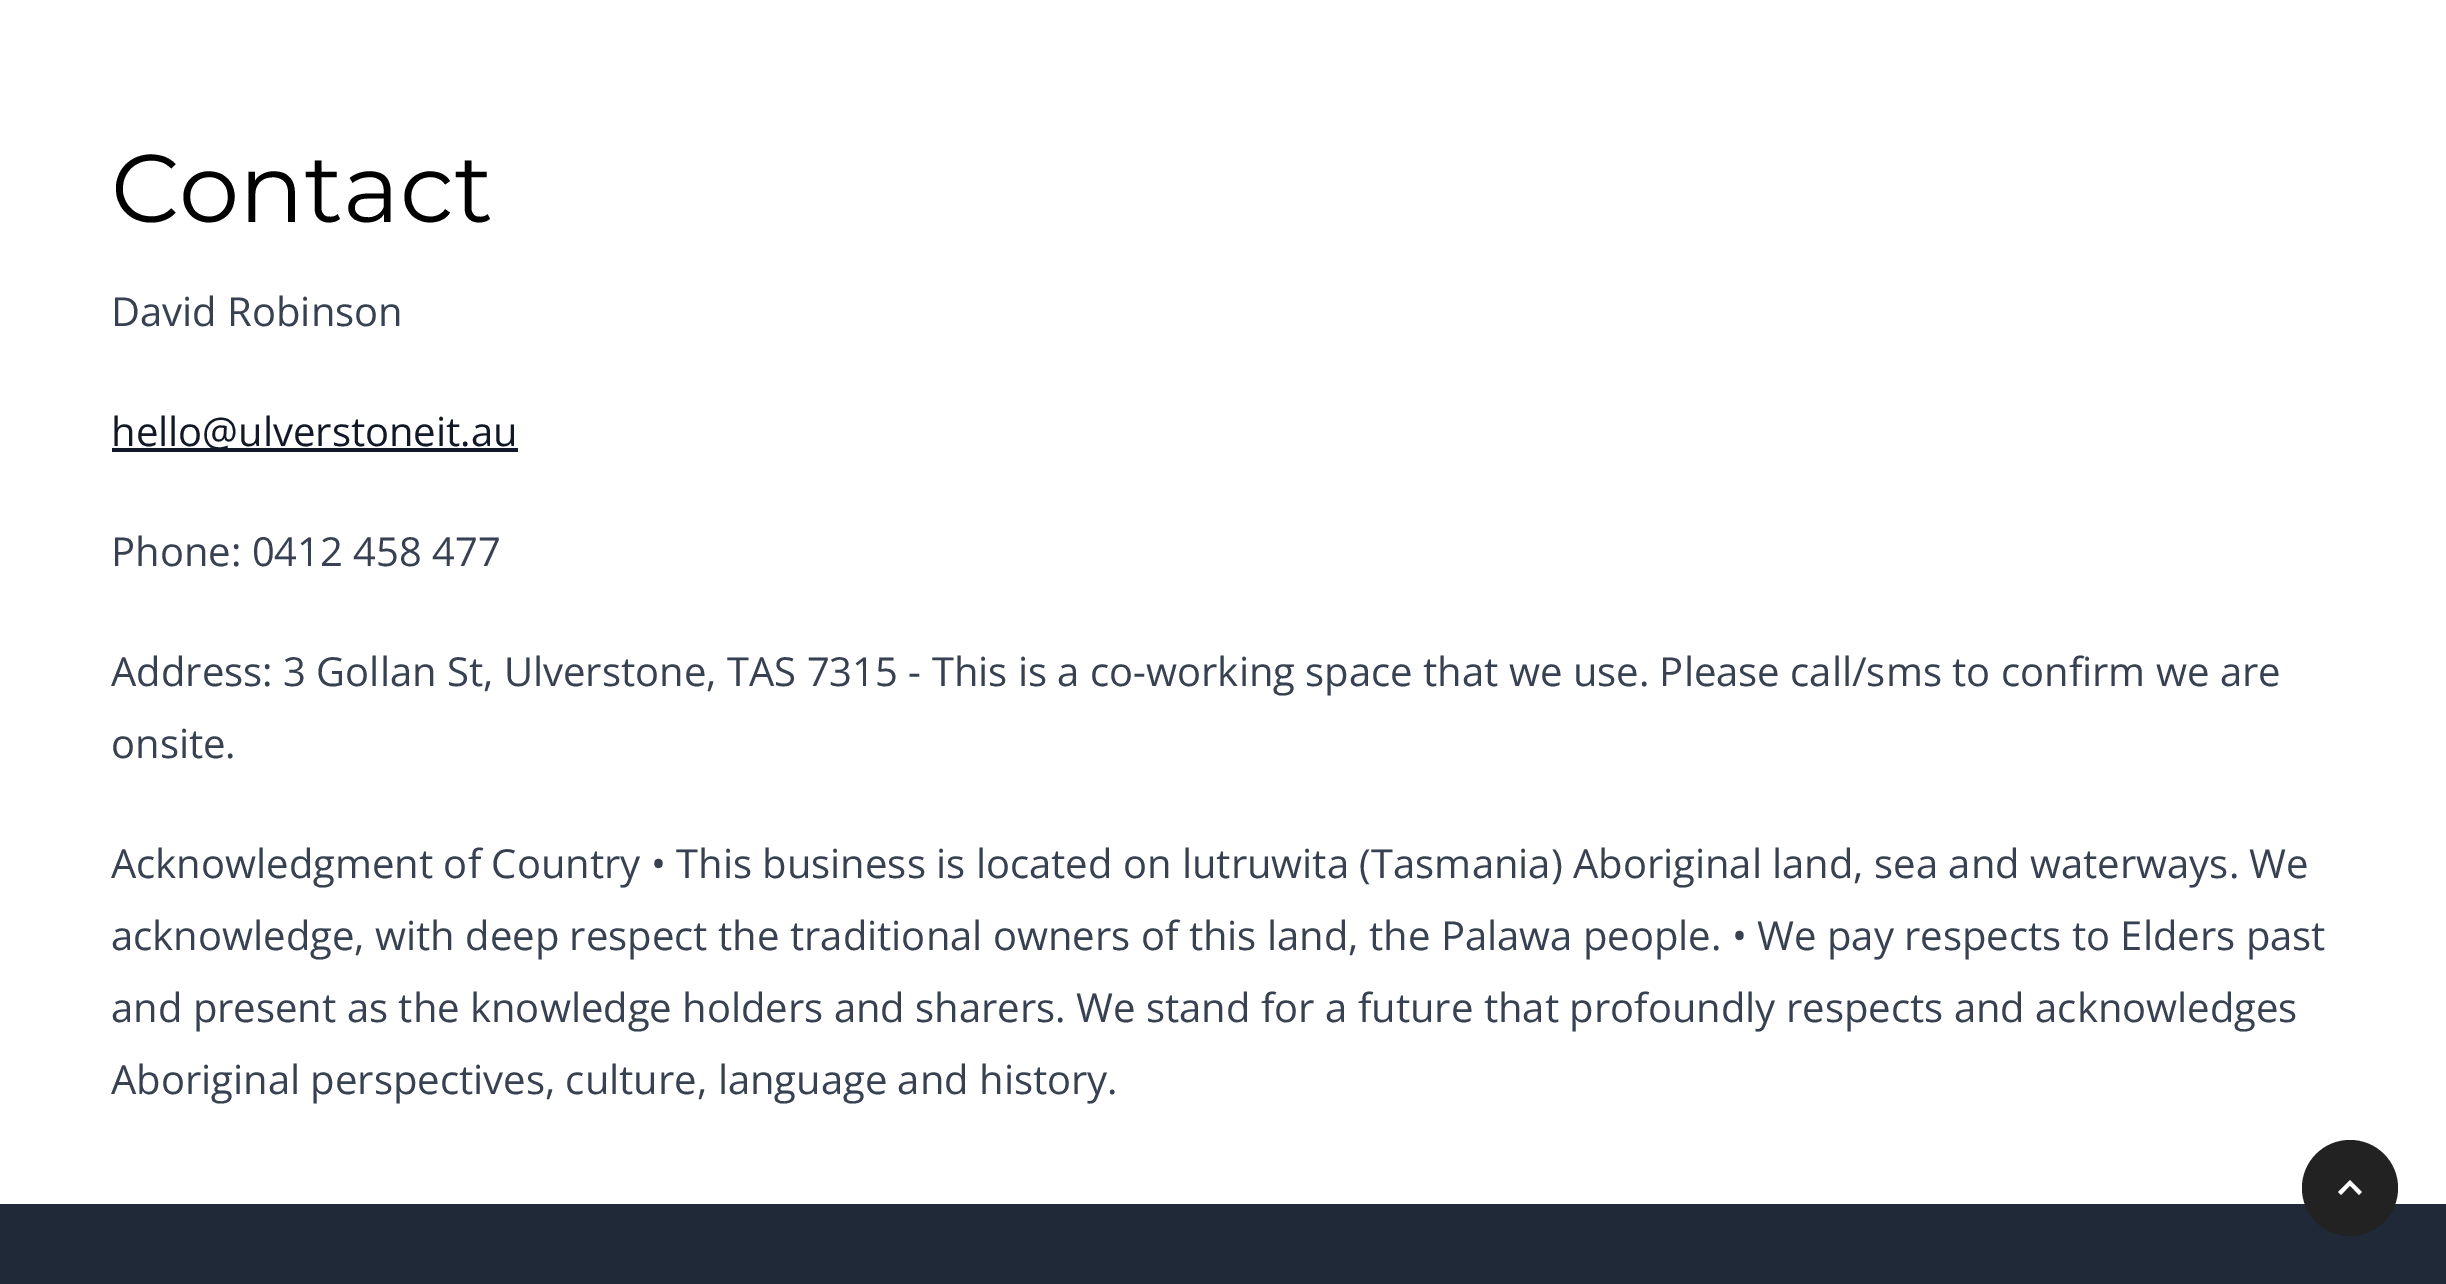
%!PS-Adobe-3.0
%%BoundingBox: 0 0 2446 1284
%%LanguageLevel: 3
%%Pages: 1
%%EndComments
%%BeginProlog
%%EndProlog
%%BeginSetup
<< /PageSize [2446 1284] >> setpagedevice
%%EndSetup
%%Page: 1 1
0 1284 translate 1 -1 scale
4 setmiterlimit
1 setgray
0 0 2446 1284 rectfill
0.067 0.094 0.153 setrgbcolor
112 448 406 4 rectfill
0.122 0.161 0.216 setrgbcolor
0 1204 2446 80 rectfill
0.133 setgray
newpath 2350 1188 48 0 360 arc closepath fill
1 setgray
newpath 2341 1195 moveto 2338 1192 lineto 2350 1180 lineto 2362 1192 lineto 2359 1195 lineto 2350 1185.5 lineto closepath fill
/Montserrat-Thin [96 0 0 -96 0 0] selectfont
0 setgray
111 222 moveto (Contact) show
/OpenSans-Regular [40 0 0 -40 0 0] selectfont
0.216 0.255 0.318 setrgbcolor
111 326 moveto (David Robinson) show
0.067 0.094 0.153 setrgbcolor
111 446 moveto (hello@ulverstoneit.au) show
0.216 0.255 0.318 setrgbcolor
111 566 moveto (Phone: 0412 458 477) show
111 686 moveto (Address: 3 Gollan St, Ulverstone, TAS 7315 - This is a co-working space that we use. Please call/sms to confirm we are) show
111 758 moveto (onsite.) show
111 878 moveto (Acknowledgment of Country • This business is located on lutruwita \(Tasmania\) Aboriginal land, sea and waterways. We) show
111 950 moveto (acknowledge, with deep respect the traditional owners of this land, the Palawa people. • We pay respects to Elders past) show
111 1022 moveto (and present as the knowledge holders and sharers. We stand for a future that profoundly respects and acknowledges) show
111 1094 moveto (Aboriginal perspectives, culture, language and history.) show
showpage
%%EOF
